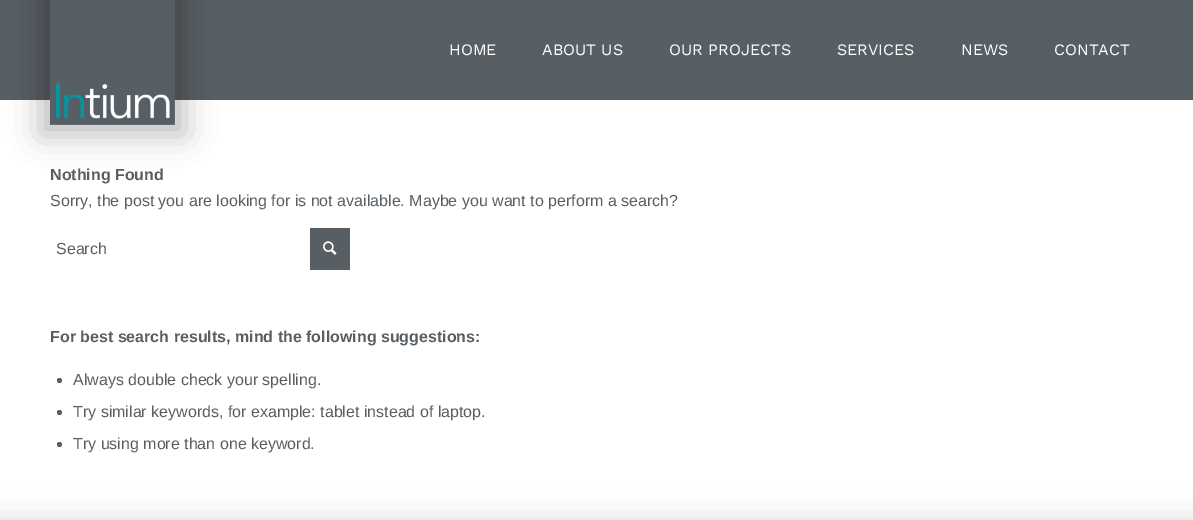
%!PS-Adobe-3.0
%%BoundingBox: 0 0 1193 520
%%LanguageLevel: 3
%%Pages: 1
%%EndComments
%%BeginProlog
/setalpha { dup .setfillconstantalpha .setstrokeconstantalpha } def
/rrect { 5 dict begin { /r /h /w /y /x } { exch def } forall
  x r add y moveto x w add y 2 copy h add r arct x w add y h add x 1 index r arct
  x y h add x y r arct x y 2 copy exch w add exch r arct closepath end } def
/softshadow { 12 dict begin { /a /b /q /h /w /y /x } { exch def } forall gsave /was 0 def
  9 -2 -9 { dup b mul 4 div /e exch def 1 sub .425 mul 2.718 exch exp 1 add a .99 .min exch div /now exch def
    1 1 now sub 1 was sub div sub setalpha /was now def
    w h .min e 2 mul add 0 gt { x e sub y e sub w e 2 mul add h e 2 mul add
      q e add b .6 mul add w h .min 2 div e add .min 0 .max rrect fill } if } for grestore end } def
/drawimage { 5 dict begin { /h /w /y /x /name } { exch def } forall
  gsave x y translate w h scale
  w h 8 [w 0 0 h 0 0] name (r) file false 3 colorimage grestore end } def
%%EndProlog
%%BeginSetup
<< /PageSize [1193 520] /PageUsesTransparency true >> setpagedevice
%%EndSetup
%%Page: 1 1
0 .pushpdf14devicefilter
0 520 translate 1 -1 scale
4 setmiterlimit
1 setgray
0 0 1193 520 rectfill
0.345 0.373 0.392 setrgbcolor
0 0 1193 100 rectfill
gsave
newpath 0 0 moveto 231 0 lineto 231 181 lineto 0 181 lineto closepath 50 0 moveto 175 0 lineto 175 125 lineto 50 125 lineto closepath eoclip newpath
0 setgray
40 -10 145 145 0 15 0.25 softshadow
grestore
(images/1.raw) 50 83 125 42 drawimage
310 228 40 42 rectfill
(images/2.raw) 323 241 14 14 drawimage
newpath 59.5 380.5 2.5 0 360 arc closepath fill
newpath 59.5 412.5 2.5 0 360 arc closepath fill
newpath 59.5 444.5 2.5 0 360 arc closepath fill
0 setgray
-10 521 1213 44 0 15 0.15 softshadow
/WorkSans-Regular [16 0 0 -16 0 0] selectfont
1 setgray
449 55 moveto (HOME) show
542 55 moveto (ABOUT US) show
669 55 moveto (OUR PROJECTS) show
837 55 moveto (SERVICES) show
961 55 moveto (NEWS) show
1054 55 moveto (CONTACT) show
/LiberationSans-Bold [16 0 0 -16 0 0] selectfont
0.345 0.373 0.392 setrgbcolor
50 180 moveto (Nothing Found) show
/LiberationSans-Regular [16 0 0 -16 0 0] selectfont
50 206 moveto (Sorry, the post you are looking for is not available. Maybe you want to perform a search?) show
56 254 moveto (Search) show
/LiberationSans-Bold [16 0 0 -16 0 0] selectfont
50 342 moveto (For best search results, mind the following suggestions:) show
/LiberationSans-Regular [16 0 0 -16 0 0] selectfont
73 385 moveto (Always double check your spelling.) show
73 417 moveto (Try similar keywords, for example: tablet instead of laptop.) show
73 449 moveto (Try using more than one keyword.) show
.poppdf14devicefilter showpage
%%EOF
